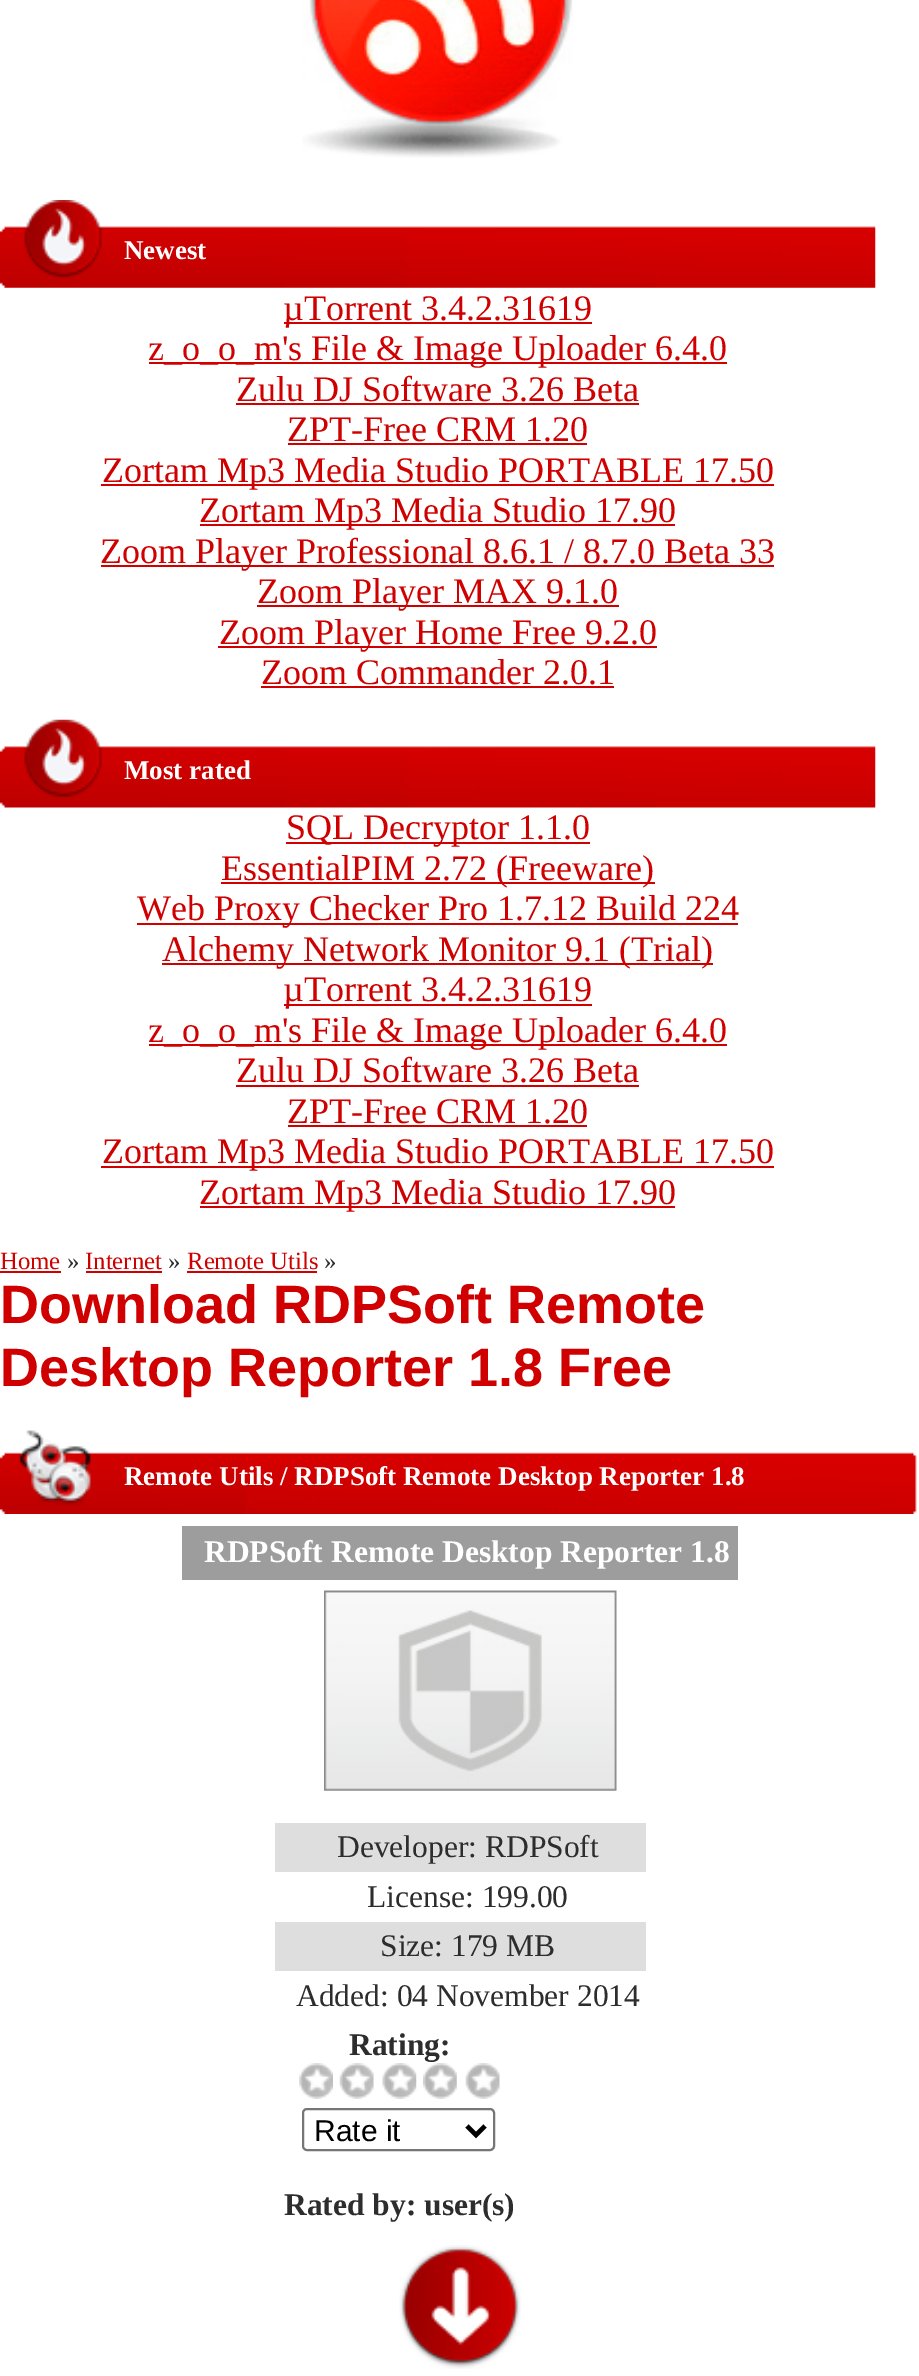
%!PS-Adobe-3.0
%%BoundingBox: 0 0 919 2376
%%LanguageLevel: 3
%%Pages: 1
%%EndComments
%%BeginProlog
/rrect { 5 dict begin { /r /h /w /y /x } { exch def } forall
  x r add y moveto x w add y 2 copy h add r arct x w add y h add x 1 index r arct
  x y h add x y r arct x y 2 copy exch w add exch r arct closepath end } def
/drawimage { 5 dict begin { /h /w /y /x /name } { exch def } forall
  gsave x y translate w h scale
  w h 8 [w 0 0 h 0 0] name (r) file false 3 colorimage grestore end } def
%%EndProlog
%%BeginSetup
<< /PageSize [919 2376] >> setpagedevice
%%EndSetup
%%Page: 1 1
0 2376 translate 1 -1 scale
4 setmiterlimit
1 setgray
0 0 919 2376 rectfill
(images/1.raw) 302 0 271 158 drawimage
(images/2.raw) 0 200 876 88 drawimage
0.816 0 0 setrgbcolor
284 322 308 2 rectfill
149 362 578 2 rectfill
236 403 403 2 rectfill
288 443 299 2 rectfill
101 484 673 2 rectfill
200 524 475 2 rectfill
101 565 673 2 rectfill
257 605 362 2 rectfill
218 646 439 2 rectfill
261 686 353 2 rectfill
(images/3.raw) 0 719 876 89 drawimage
286 842 304 2 rectfill
221 882 434 2 rectfill
137 923 601 2 rectfill
162 963 551 2 rectfill
284 1004 308 2 rectfill
149 1044 578 2 rectfill
236 1085 403 2 rectfill
288 1125 299 2 rectfill
101 1166 673 2 rectfill
200 1206 475 2 rectfill
0 1271 61 2 rectfill
86 1271 76 2 rectfill
187 1271 130 2 rectfill
(images/4.raw) 0 1430 919 84 drawimage
(images/5.raw) 245 1452 674 62 drawimage
0.616 setgray
182 1526 556 54 rectfill
(images/6.raw) 324 1590 293 201 drawimage
0.871 setgray
275 1823 371 49 rectfill
275 1922 371 49 rectfill
(images/7.raw) 299 2063 34 36 drawimage
(images/8.raw) 339 2063 35 36 drawimage
(images/9.raw) 382 2063 35 36 drawimage
(images/10.raw) 423 2063 34 36 drawimage
(images/11.raw) 465 2063 35 36 drawimage
0.463 setgray
2 setlinewidth
303 2109 191 41 4 rrect stroke
0 setgray
4.5 setlinewidth
newpath 467 2126 moveto 476 2135 lineto 485 2126 lineto stroke
(images/12.raw) 399 2245 122 124 drawimage
/LiberationSerif-Bold [27 0 0 -27 0 0] selectfont
1 setgray
124 259 moveto (Newest) show
/LiberationSerif-Regular [36 0 0 -36 0 0] selectfont
0.816 0 0 setrgbcolor
283 320 moveto (µTorrent 3.4.2.31619) show
148 360 moveto (z_o_o_m's File & Image Uploader 6.4.0) show
236 401 moveto (Zulu DJ Software 3.26 Beta) show
287 441 moveto (ZPT-Free CRM 1.20) show
102 482 moveto (Zortam Mp3 Media Studio PORTABLE 17.50) show
199 522 moveto (Zortam Mp3 Media Studio 17.90) show
100 563 moveto (Zoom Player Professional 8.6.1 / 8.7.0 Beta 33) show
257 603 moveto (Zoom Player MAX 9.1.0) show
219 644 moveto (Zoom Player Home Free 9.2.0) show
261 684 moveto (Zoom Commander 2.0.1) show
/LiberationSerif-Bold [27 0 0 -27 0 0] selectfont
1 setgray
124 779 moveto (Most rated) show
/LiberationSerif-Regular [36 0 0 -36 0 0] selectfont
0.816 0 0 setrgbcolor
286 839 moveto (SQL Decryptor 1.1.0) show
221 880 moveto (EssentialPIM 2.72 \(Freeware\)) show
137 920 moveto (Web Proxy Checker Pro 1.7.12 Build 224) show
162 961 moveto (Alchemy Network Monitor 9.1 \(Trial\)) show
283 1001 moveto (µTorrent 3.4.2.31619) show
148 1042 moveto (z_o_o_m's File & Image Uploader 6.4.0) show
236 1082 moveto (Zulu DJ Software 3.26 Beta) show
287 1123 moveto (ZPT-Free CRM 1.20) show
102 1163 moveto (Zortam Mp3 Media Studio PORTABLE 17.50) show
199 1204 moveto (Zortam Mp3 Media Studio 17.90) show
/LiberationSerif-Regular [24.75 0 0 -24.75 0 0] selectfont
0 1269 moveto (Home) show
0.176 setgray
67 1269 moveto (») show
0.816 0 0 setrgbcolor
85 1269 moveto (Internet) show
0.176 setgray
168 1269 moveto (») show
0.816 0 0 setrgbcolor
187 1269 moveto (Remote Utils) show
0.176 setgray
324 1269 moveto (») show
/LiberationSans-Bold [54 0 0 -54 0 0] selectfont
0.816 0 0 setrgbcolor
0 1323 moveto (Download RDPSoft Remote) show
0 1386 moveto (Desktop Reporter 1.8 Free) show
/LiberationSerif-Bold [27 0 0 -27 0 0] selectfont
1 setgray
124 1485 moveto (Remote Utils / RDPSoft Remote Desktop Reporter 1.8) show
/LiberationSerif-Bold [31.5 0 0 -31.5 0 0] selectfont
204 1562 moveto (RDPSoft Remote Desktop Reporter 1.8) show
/LiberationSerif-Regular [31.5 0 0 -31.5 0 0] selectfont
0.176 setgray
337 1857 moveto (Developer: RDPSoft) show
367 1907 moveto (License: 199.00) show
380 1956 moveto (Size: 179 MB) show
296 2006 moveto (Added: 04 November 2014) show
/LiberationSerif-Bold [31.5 0 0 -31.5 0 0] selectfont
349 2055 moveto (Rating:) show
/LiberationSans-Regular [30 0 0 -30 0 0] selectfont
0 setgray
314 2141 moveto (Rate it) show
/LiberationSerif-Bold [31.5 0 0 -31.5 0 0] selectfont
0.176 setgray
284 2215 moveto (Rated by: user\(s\)) show
showpage
%%EOF
